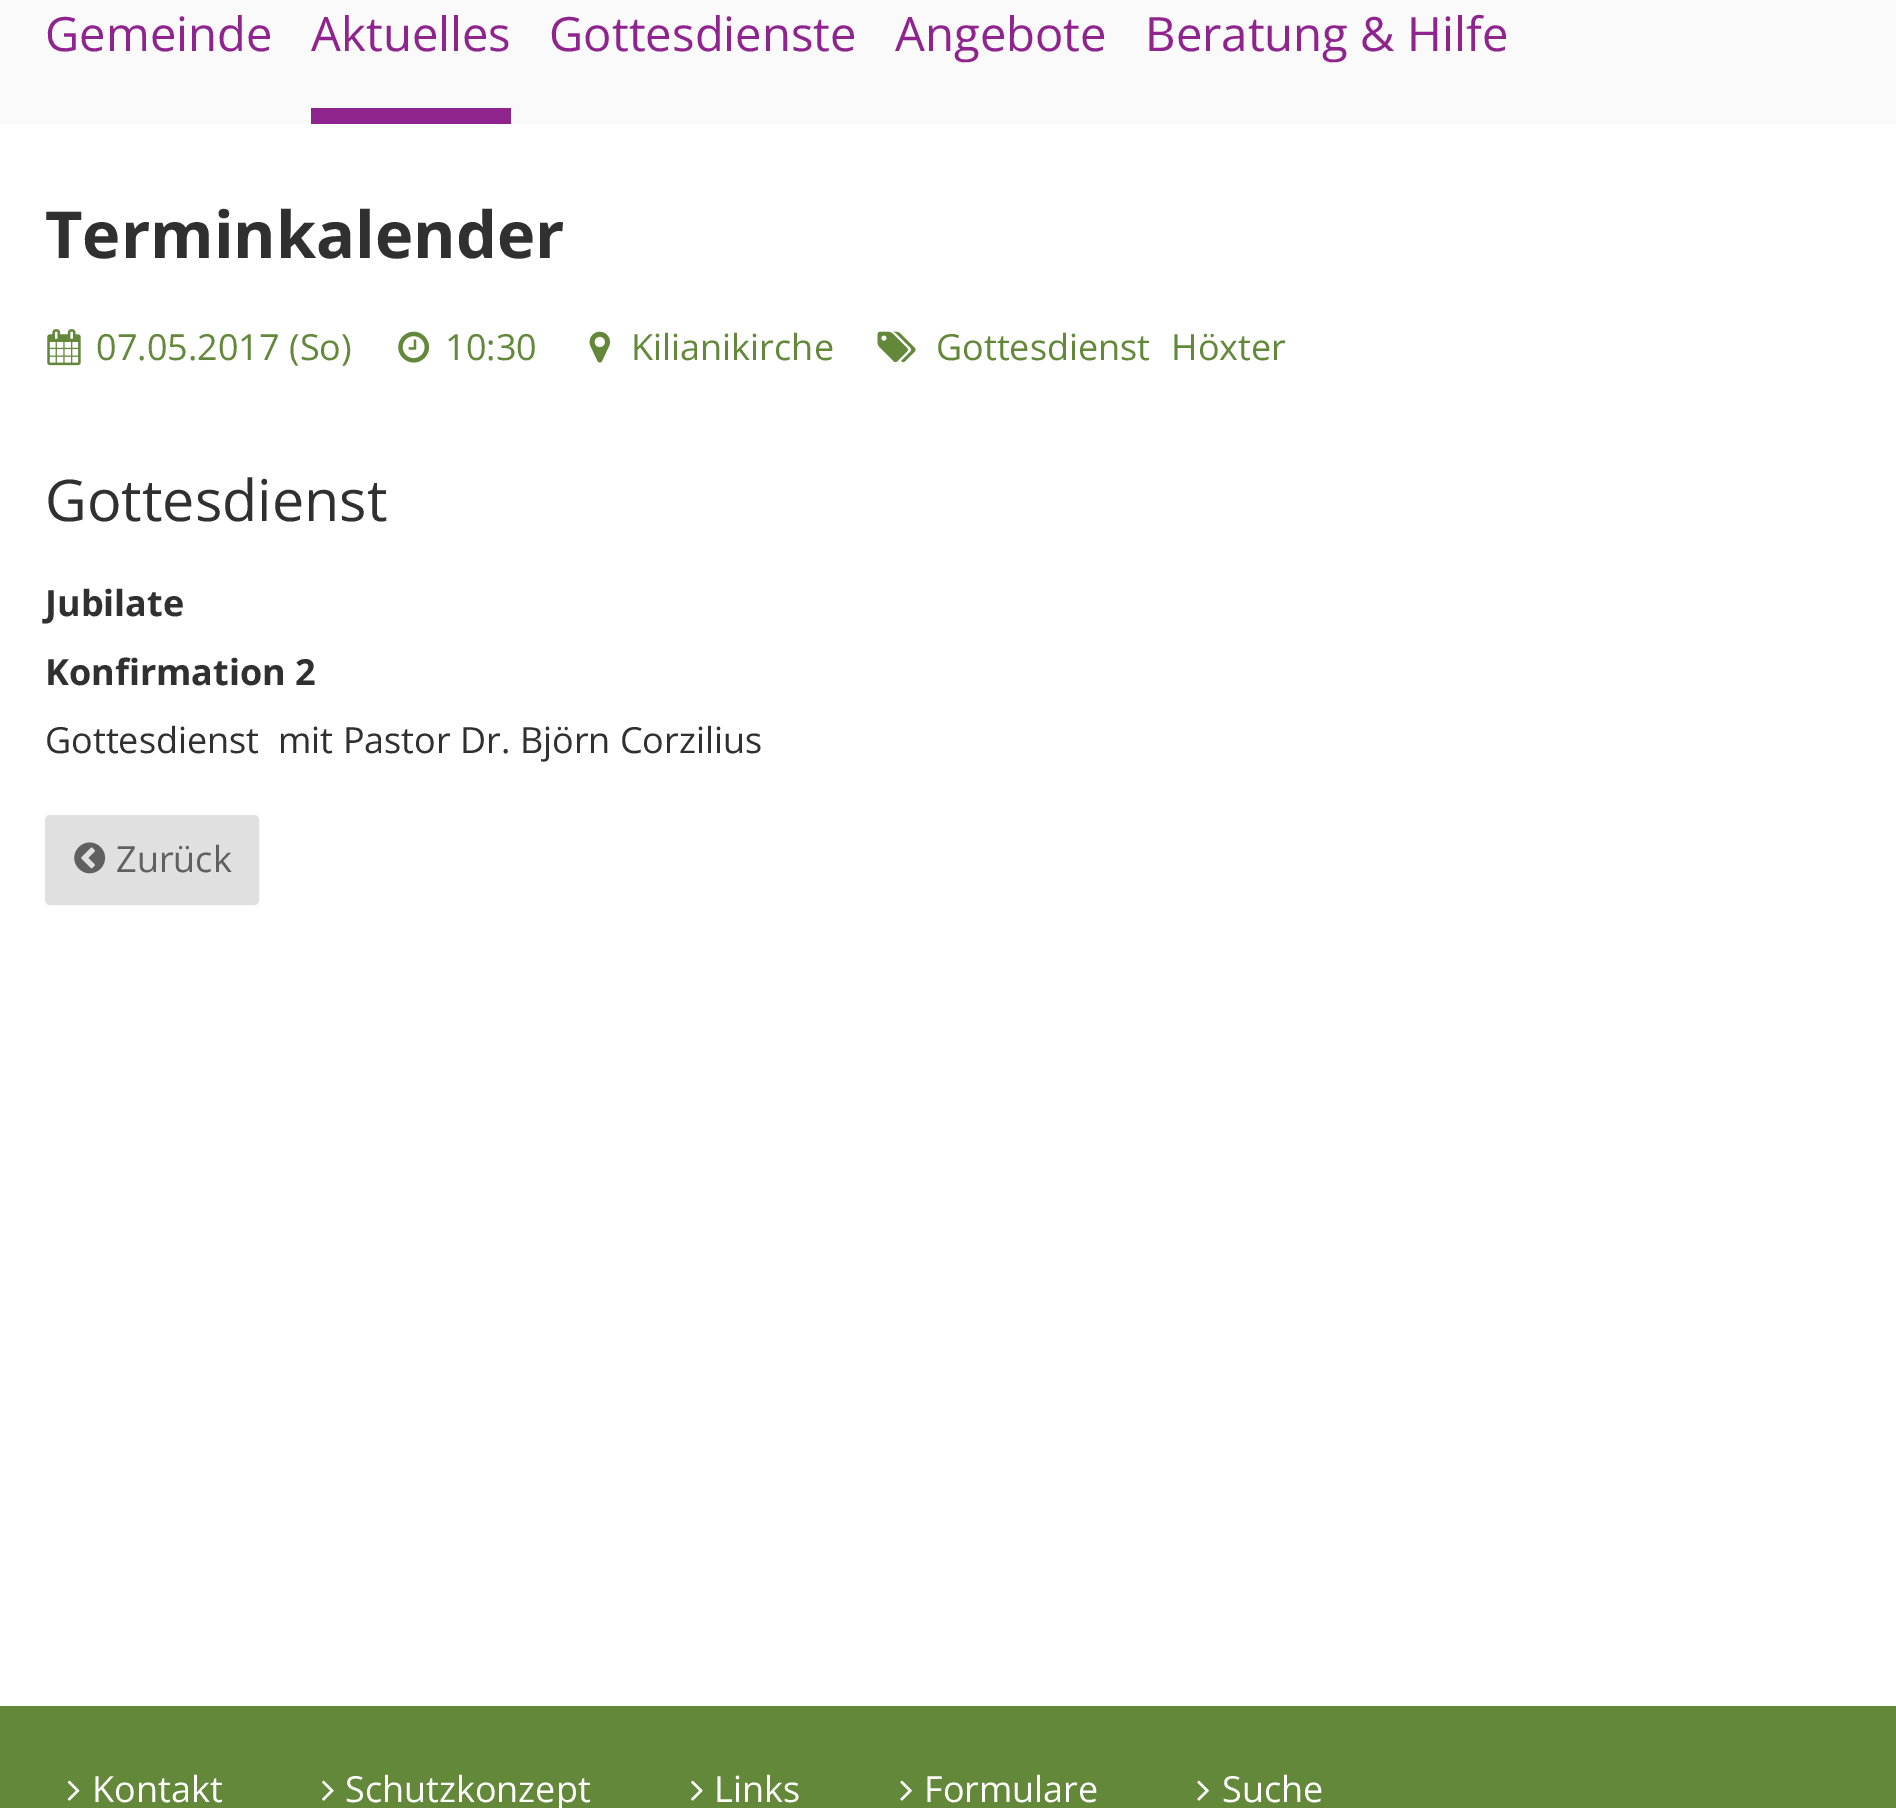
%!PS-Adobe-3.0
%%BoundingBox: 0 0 1896 1808
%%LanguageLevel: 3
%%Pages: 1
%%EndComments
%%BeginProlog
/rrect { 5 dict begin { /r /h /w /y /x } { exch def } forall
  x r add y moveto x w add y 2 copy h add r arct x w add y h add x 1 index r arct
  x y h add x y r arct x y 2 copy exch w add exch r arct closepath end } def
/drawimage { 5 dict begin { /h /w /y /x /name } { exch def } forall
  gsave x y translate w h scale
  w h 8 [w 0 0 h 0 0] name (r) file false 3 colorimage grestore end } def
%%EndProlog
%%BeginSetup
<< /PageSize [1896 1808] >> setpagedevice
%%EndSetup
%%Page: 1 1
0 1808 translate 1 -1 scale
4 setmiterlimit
1 setgray
0 0 1896 1808 rectfill
0.98 setgray
0 0 1896 124 rectfill
0.561 0.141 0.561 setrgbcolor
311 108 200 16 rectfill
(images/1.raw) 47 329 34 37 drawimage
(images/2.raw) 398 331 32 32 drawimage
(images/3.raw) 589 331 22 32 drawimage
(images/4.raw) 877 331 39 32 drawimage
0.878 setgray
47.5 817.5 209 85 2.5 rrect gsave fill grestore
5 setlinewidth
stroke
(images/5.raw) 74 842 32 32 drawimage
0.388 0.533 0.227 setrgbcolor
0 1706 1896 102 rectfill
(images/6.raw) 67 1780 13 21 drawimage
(images/7.raw) 322 1780 12 21 drawimage
(images/7.raw) 691 1780 12 21 drawimage
(images/8.raw) 900 1780 12 21 drawimage
(images/8.raw) 1197 1780 12 21 drawimage
/OpenSans-Regular [47.25 0 0 -47.25 0 0] selectfont
0.561 0.141 0.561 setrgbcolor
45 51 moveto (Gemeinde) show
311 51 moveto (Aktuelles) show
549 51 moveto (Gottesdienste) show
895 51 moveto (Angebote) show
1145 51 moveto (Beratung & Hilfe) show
/OpenSans-Bold [64.75 0 0 -64.75 0 0] selectfont
0.188 setgray
45 258 moveto (Terminkalender) show
/OpenSans-Regular [36 0 0 -36 0 0] selectfont
0.388 0.533 0.227 setrgbcolor
96 360 moveto (07.05.2017 \(So\)) show
445 360 moveto (10:30) show
631 360 moveto (Kilianikirche) show
936 360 moveto (Gottesdienst) show
1171 360 moveto (Höxter) show
/OpenSans-Regular [57.5 0 0 -57.5 0 0] selectfont
0.188 setgray
45 521 moveto (Gottesdienst) show
/OpenSans-Bold [36 0 0 -36 0 0] selectfont
45 616 moveto (Jubilate) show
45 685 moveto (Konfirmation 2) show
/OpenSans-Regular [36 0 0 -36 0 0] selectfont
45 753 moveto (Gottesdienst  mit Pastor Dr. Björn Corzilius) show
0.376 setgray
116 872 moveto (Zurück) show
1 setgray
92 1802 moveto (Kontakt) show
345 1802 moveto (Schutzkonzept) show
714 1802 moveto (Links) show
924 1802 moveto (Formulare) show
1222 1802 moveto (Suche) show
showpage
%%EOF
